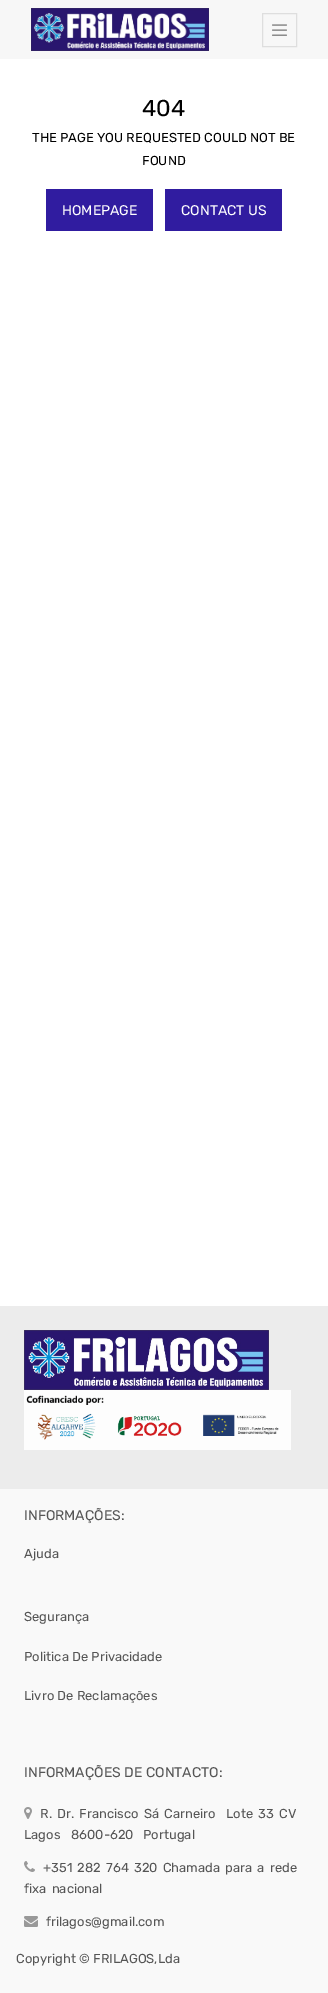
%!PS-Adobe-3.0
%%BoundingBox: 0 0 328 1993
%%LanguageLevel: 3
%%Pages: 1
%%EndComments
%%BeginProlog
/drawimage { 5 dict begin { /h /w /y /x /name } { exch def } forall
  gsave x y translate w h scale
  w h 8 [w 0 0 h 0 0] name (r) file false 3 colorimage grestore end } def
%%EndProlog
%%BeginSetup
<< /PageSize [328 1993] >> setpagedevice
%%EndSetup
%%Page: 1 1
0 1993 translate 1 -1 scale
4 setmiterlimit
1 setgray
0 0 328 1993 rectfill
0.969 setgray
0 0 328 59 rectfill
(images/1.raw) 31 8 178 43 drawimage
0.871 setgray
262.5 13.5 34 33 rectstroke
(images/2.raw) 272 24 15 12 drawimage
0.188 0.11 0.627 setrgbcolor
46 189 107 42 rectfill
165 189 117 42 rectfill
0.976 setgray
0 1489 328 504 rectfill
0.925 setgray
0 1306 328 183 rectfill
(images/3.raw) 24 1330 245 60 drawimage
(images/4.raw) 24 1390 267 60 drawimage
(images/5.raw) 24 1807 8 12 drawimage
(images/6.raw) 24 1861 11 11 drawimage
(images/7.raw) 24 1916 14 11 drawimage
/Rubik-Light [23 0 0 -23 0 0] selectfont
0 setgray
142 116 moveto (404) show
/Rubik-Light [13 0 0 -13 0 0] selectfont
32 142 moveto (THE PAGE YOU REQUESTED COULD NOT BE) show
142 165 moveto (FOUND) show
/Rubik-Light [14 0 0 -14 0 0] selectfont
1 setgray
62 215 moveto (HOMEPAGE) show
181 215 moveto (CONTACT US) show
0.333 setgray
24 1520 moveto (INFORMAÇÕES:) show
/Rubik-Light [13 0 0 -13 0 0] selectfont
24 1558 moveto (Ajuda) show
24 1621 moveto (Segurança) show
24 1661 moveto (Politica De Privacidade) show
24 1700 moveto (Livro De Reclamações) show
/Rubik-Light [14 0 0 -14 0 0] selectfont
24 1777 moveto (INFORMAÇÕES DE CONTACTO:) show
/Rubik-Light [13 0 0 -13 0 0] selectfont
40 1818 moveto 2 0 32 (R. Dr. Francisco Sá Carneiro) widthshow
226 1818 moveto 2 0 32 (Lote 33 CV) widthshow
24 1839 moveto (Lagos) show
71 1839 moveto (8600-620) show
143 1839 moveto (Portugal) show
43 1872 moveto 2 0 32 (+351 282 764 320 Chamada para a rede) widthshow
24 1893 moveto 2 0 32 (fixa nacional) widthshow
46 1926 moveto (frilagos@gmail.com) show
16 1963 moveto (Copyright © FRILAGOS,Lda) show
showpage
%%EOF
